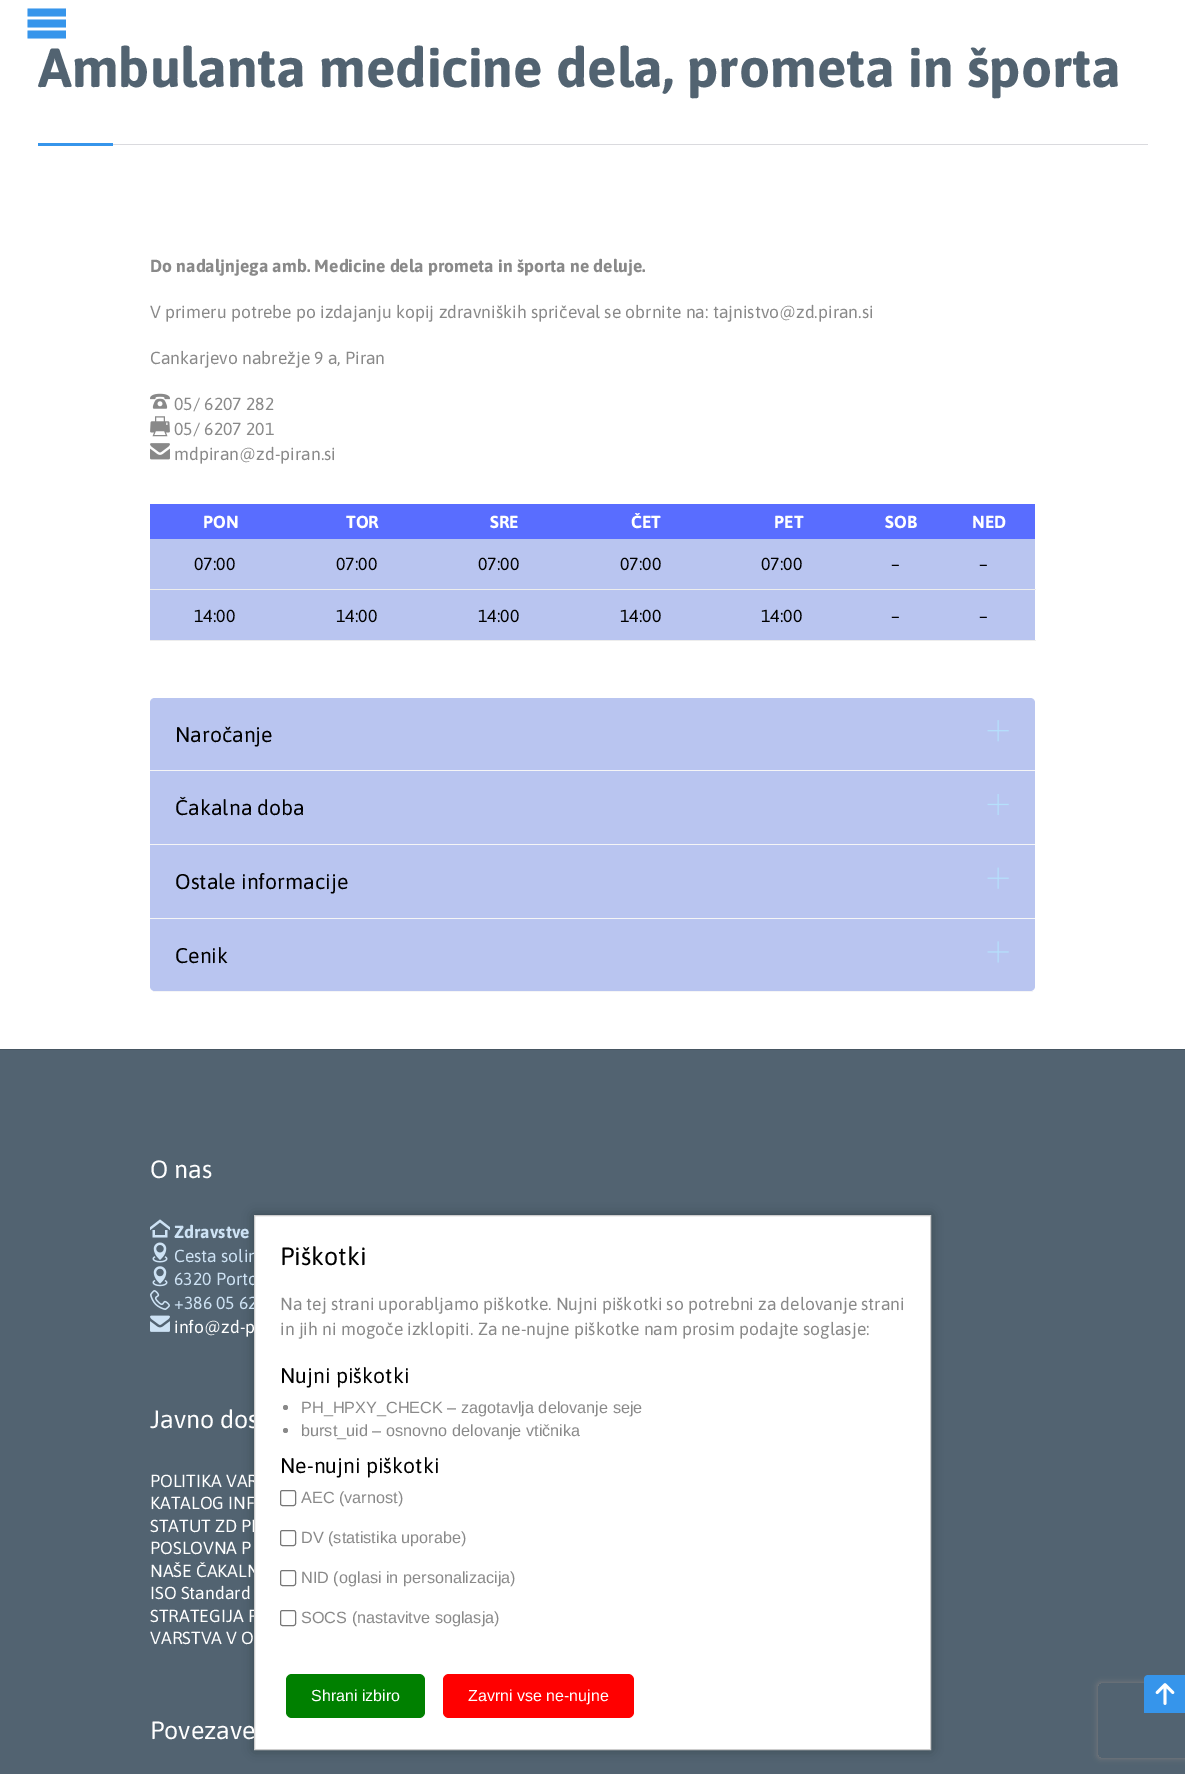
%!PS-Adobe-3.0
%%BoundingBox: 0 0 1185 1774
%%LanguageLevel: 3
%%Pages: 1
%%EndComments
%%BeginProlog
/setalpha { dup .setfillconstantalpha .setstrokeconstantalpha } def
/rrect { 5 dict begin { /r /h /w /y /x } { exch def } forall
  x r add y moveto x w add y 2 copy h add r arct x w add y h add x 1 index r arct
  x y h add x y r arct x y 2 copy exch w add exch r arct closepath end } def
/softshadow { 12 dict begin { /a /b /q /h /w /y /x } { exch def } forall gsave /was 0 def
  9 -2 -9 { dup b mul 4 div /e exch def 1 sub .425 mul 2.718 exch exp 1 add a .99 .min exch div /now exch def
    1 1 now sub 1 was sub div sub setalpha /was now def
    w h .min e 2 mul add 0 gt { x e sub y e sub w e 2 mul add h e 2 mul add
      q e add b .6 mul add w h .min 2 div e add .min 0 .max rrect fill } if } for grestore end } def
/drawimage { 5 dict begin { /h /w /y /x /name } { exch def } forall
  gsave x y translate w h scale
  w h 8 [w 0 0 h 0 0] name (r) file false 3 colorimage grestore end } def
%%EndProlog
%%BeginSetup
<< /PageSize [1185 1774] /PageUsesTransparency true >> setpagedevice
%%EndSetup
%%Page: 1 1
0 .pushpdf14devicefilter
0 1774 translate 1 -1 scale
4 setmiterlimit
1 setgray
0 0 1185 1774 rectfill
0.212 0.584 0.922 setrgbcolor
newpath 27.5 8.5 moveto 66 8.5 lineto 66 16.5 lineto 27.5 16.5 lineto closepath 27.5 19.5 moveto 66 19.5 lineto 66 27.5 lineto 27.5 27.5 lineto closepath 27.5 30.5 moveto 66 30.5 lineto 66 38.5 lineto 27.5 38.5 lineto closepath fill
0.855 0.855 0.871 setrgbcolor
113 144 1035 1 rectfill
0.212 0.584 0.922 setrgbcolor
38 143 75 3 rectfill
(images/1.raw) 150 393 20 16 drawimage
(images/2.raw) 150 416 20 21 drawimage
(images/3.raw) 150 443 20 17 drawimage
0.349 0.427 1 setrgbcolor
150 504 885 35 rectfill
0.725 0.773 0.941 setrgbcolor
150 539 885 50 rectfill
0.929 setgray
150 589 886 1 rectfill
0.725 0.773 0.941 setrgbcolor
150 590 885 50 rectfill
0.929 setgray
150 640 886 1 rectfill
0.961 0.961 0.965 setrgbcolor
150 770 885 1 rectfill
0.725 0.773 0.941 setrgbcolor
newpath 155 698 moveto 1030 698 lineto 1033 698 1035 700 1035 703 curveto 1035 770 lineto 150 770 lineto 150 703 lineto 150 700 152 698 155 698 curveto closepath fill
(images/4.raw) 987 720 22 22 drawimage
0.961 0.961 0.965 setrgbcolor
150 844 885 1 rectfill
0.725 0.773 0.941 setrgbcolor
150 771 885 73 rectfill
(images/5.raw) 987 794 22 21 drawimage
0.961 0.961 0.965 setrgbcolor
150 918 885 1 rectfill
0.725 0.773 0.941 setrgbcolor
150 845 885 73 rectfill
(images/6.raw) 987 867 22 22 drawimage
0.961 0.961 0.965 setrgbcolor
153 991 880 1 rectfill
0.725 0.773 0.941 setrgbcolor
newpath 150 919 moveto 1035 919 lineto 1035 986 lineto 1035 989 1033 991 1030 991 curveto 155 991 lineto 152 991 150 989 150 986 curveto closepath fill
(images/7.raw) 987 941 22 22 drawimage
0.322 0.388 0.443 setrgbcolor
0 1050 1185 724 rectfill
0.278 0.337 0.384 setrgbcolor
0 1049 1185 1 rectfill
(images/8.raw) 150 1219 20 19 drawimage
(images/9.raw) 152 1242 16 21 drawimage
(images/10.raw) 152 1266 16 21 drawimage
(images/11.raw) 150 1290 20 20 drawimage
(images/12.raw) 150 1315 20 17 drawimage
0 setgray
254 1215 677 535 0 6 0.3 softshadow
gsave
newpath 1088 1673 moveto 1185 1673 lineto 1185 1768 lineto 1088 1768 lineto closepath 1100.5 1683 moveto 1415.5 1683 lineto 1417 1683 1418 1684 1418 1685.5 curveto 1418 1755.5 lineto 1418 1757 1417 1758 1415.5 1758 curveto 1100.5 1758 lineto 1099 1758 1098 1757 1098 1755.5 curveto 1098 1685.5 lineto 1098 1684 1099 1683 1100.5 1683 curveto closepath eoclip newpath
0.502 setgray
1098 1683 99 75 2.5 3 1 softshadow
grestore
0.212 0.584 0.922 setrgbcolor
newpath 1148 1675 moveto 1185 1675 lineto 1185 1713 lineto 1144 1713 lineto 1144 1679 lineto 1144 1677 1146 1675 1148 1675 curveto closepath fill
(images/13.raw) 1155 1683 20 22 drawimage
/Asap-Bold [55 0 0 -55 0 0] selectfont
0.322 0.388 0.443 setrgbcolor
38 87 moveto (Ambulanta medicine dela, prometa in športa) show
/Asap-Bold [17.5 0 0 -17.5 0 0] selectfont
0.537 setgray
150 272 moveto (Do nadaljnjega amb. Medicine dela prometa in športa ne deluje.) show
/Asap-Regular [17.5 0 0 -17.5 0 0] selectfont
150 318 moveto (V primeru potrebe po izdajanju kopij zdravniških spričeval se obrnite na: tajnistvo@zd.piran.si) show
150 364 moveto (Cankarjevo nabrežje 9 a, Piran) show
174 410 moveto (05/ 6207 282) show
174 435 moveto (05/ 6207 201) show
174 460 moveto (mdpiran@zd-piran.si) show
/Asap-Bold [17.5 0 0 -17.5 0 0] selectfont
1 setgray
203 528 moveto (PON) show
346 528 moveto (TOR) show
490 528 moveto (SRE) show
631 528 moveto (ČET) show
774 528 moveto (PET) show
885 528 moveto (SOB) show
972 528 moveto (NED) show
/Asap-Regular [17.5 0 0 -17.5 0 0] selectfont
0 setgray
194 570 moveto (07:00) show
336 570 moveto (07:00) show
478 570 moveto (07:00) show
620 570 moveto (07:00) show
761 570 moveto (07:00) show
891 570 moveto (–) show
979 570 moveto (–) show
194 622 moveto (14:00) show
336 622 moveto (14:00) show
478 622 moveto (14:00) show
620 622 moveto (14:00) show
761 622 moveto (14:00) show
891 622 moveto (–) show
979 622 moveto (–) show
/Asap-Regular [21.25 0 0 -21.25 0 0] selectfont
175 742 moveto (Naročanje) show
175 815 moveto (Čakalna doba) show
175 889 moveto (Ostale informacije) show
175 963 moveto (Cenik) show
/Asap-Regular [25 0 0 -25 0 0] selectfont
1 setgray
150 1178 moveto (O nas) show
/Asap-Bold [17.5 0 0 -17.5 0 0] selectfont
0.804 0.886 0.957 setrgbcolor
174 1238 moveto (Zdravstve) show
/Asap-Regular [17.5 0 0 -17.5 0 0] selectfont
174 1262 moveto (Cesta solin) show
174 1285 moveto (6320 Porto) show
174 1309 moveto (+386 05 62) show
1 setgray
174 1333 moveto (info@zd-p) show
/Asap-Regular [25 0 0 -25 0 0] selectfont
150 1428 moveto (Javno dos) show
/Asap-Regular [17.5 0 0 -17.5 0 0] selectfont
150 1487 moveto (POLITIKA VAR) show
150 1509 moveto (KATALOG INF) show
150 1532 moveto (STATUT ZD PI) show
150 1554 moveto (POSLOVNA P) show
150 1577 moveto (NAŠE ČAKALN) show
150 1599 moveto (ISO Standard) show
150 1622 moveto (STRATEGIJA P) show
150 1644 moveto (VARSTVA V O) show
/Asap-Regular [25 0 0 -25 0 0] selectfont
150 1739 moveto (Povezave) show
newpath 254.5 1215.5 moveto 930.5 1215.5 lineto 930.5 1749.5 lineto 254.5 1749.5 lineto closepath gsave fill grestore
0.8 setgray
stroke
0 setgray
280 1265 moveto (Piškotki) show
/Asap-Regular [17.5 0 0 -17.5 0 0] selectfont
0.537 setgray
280 1310 moveto (Na tej strani uporabljamo piškotke. Nujni piškotki so potrebni za delovanje strani) show
280 1335 moveto (in jih ni mogoče izklopiti. Za ne-nujne piškotke nam prosim podajte soglasje:) show
/Asap-Regular [21.25 0 0 -21.25 0 0] selectfont
0 setgray
280 1383 moveto (Nujni piškotki) show
0.537 setgray
newpath 285.5 1407.5 2.5 0 360 arc closepath fill
/LiberationSans-Regular [16.25 0 0 -16.25 0 0] selectfont
301 1413 moveto (PH_HPXY_CHECK – zagotavlja delovanje seje) show
newpath 285.5 1430.5 2.5 0 360 arc closepath fill
301 1436 moveto (burst_uid – osnovno delovanje vtičnika) show
/Asap-Regular [21.25 0 0 -21.25 0 0] selectfont
0 setgray
280 1473 moveto (Ne-nujni piškotki) show
0.463 setgray
280.5 1490.5 15 15 2 rrect stroke
/LiberationSans-Regular [16.25 0 0 -16.25 0 0] selectfont
0.537 setgray
301 1503 moveto (AEC \(varnost\)) show
0.463 setgray
280.5 1530.5 15 15 2 rrect stroke
0.537 setgray
301 1543 moveto (DV \(statistika uporabe\)) show
0.463 setgray
280.5 1570.5 15 15 2 rrect stroke
0.537 setgray
301 1583 moveto (NID \(oglasi in personalizacija\)) show
0.463 setgray
280.5 1610.5 15 15 2 rrect stroke
0.537 setgray
301 1623 moveto (SOCS \(nastavitve soglasja\)) show
0 0.502 0 setrgbcolor
286 1674 139 44 6 rrect fill
/LiberationSans-Regular [16 0 0 -16 0 0] selectfont
1 setgray
311 1701 moveto (Shrani izbiro) show
1 0 0 setrgbcolor
443 1674 191 44 6 rrect fill
1 setgray
468 1701 moveto (Zavrni vse ne-nujne) show
.poppdf14devicefilter showpage
%%EOF
